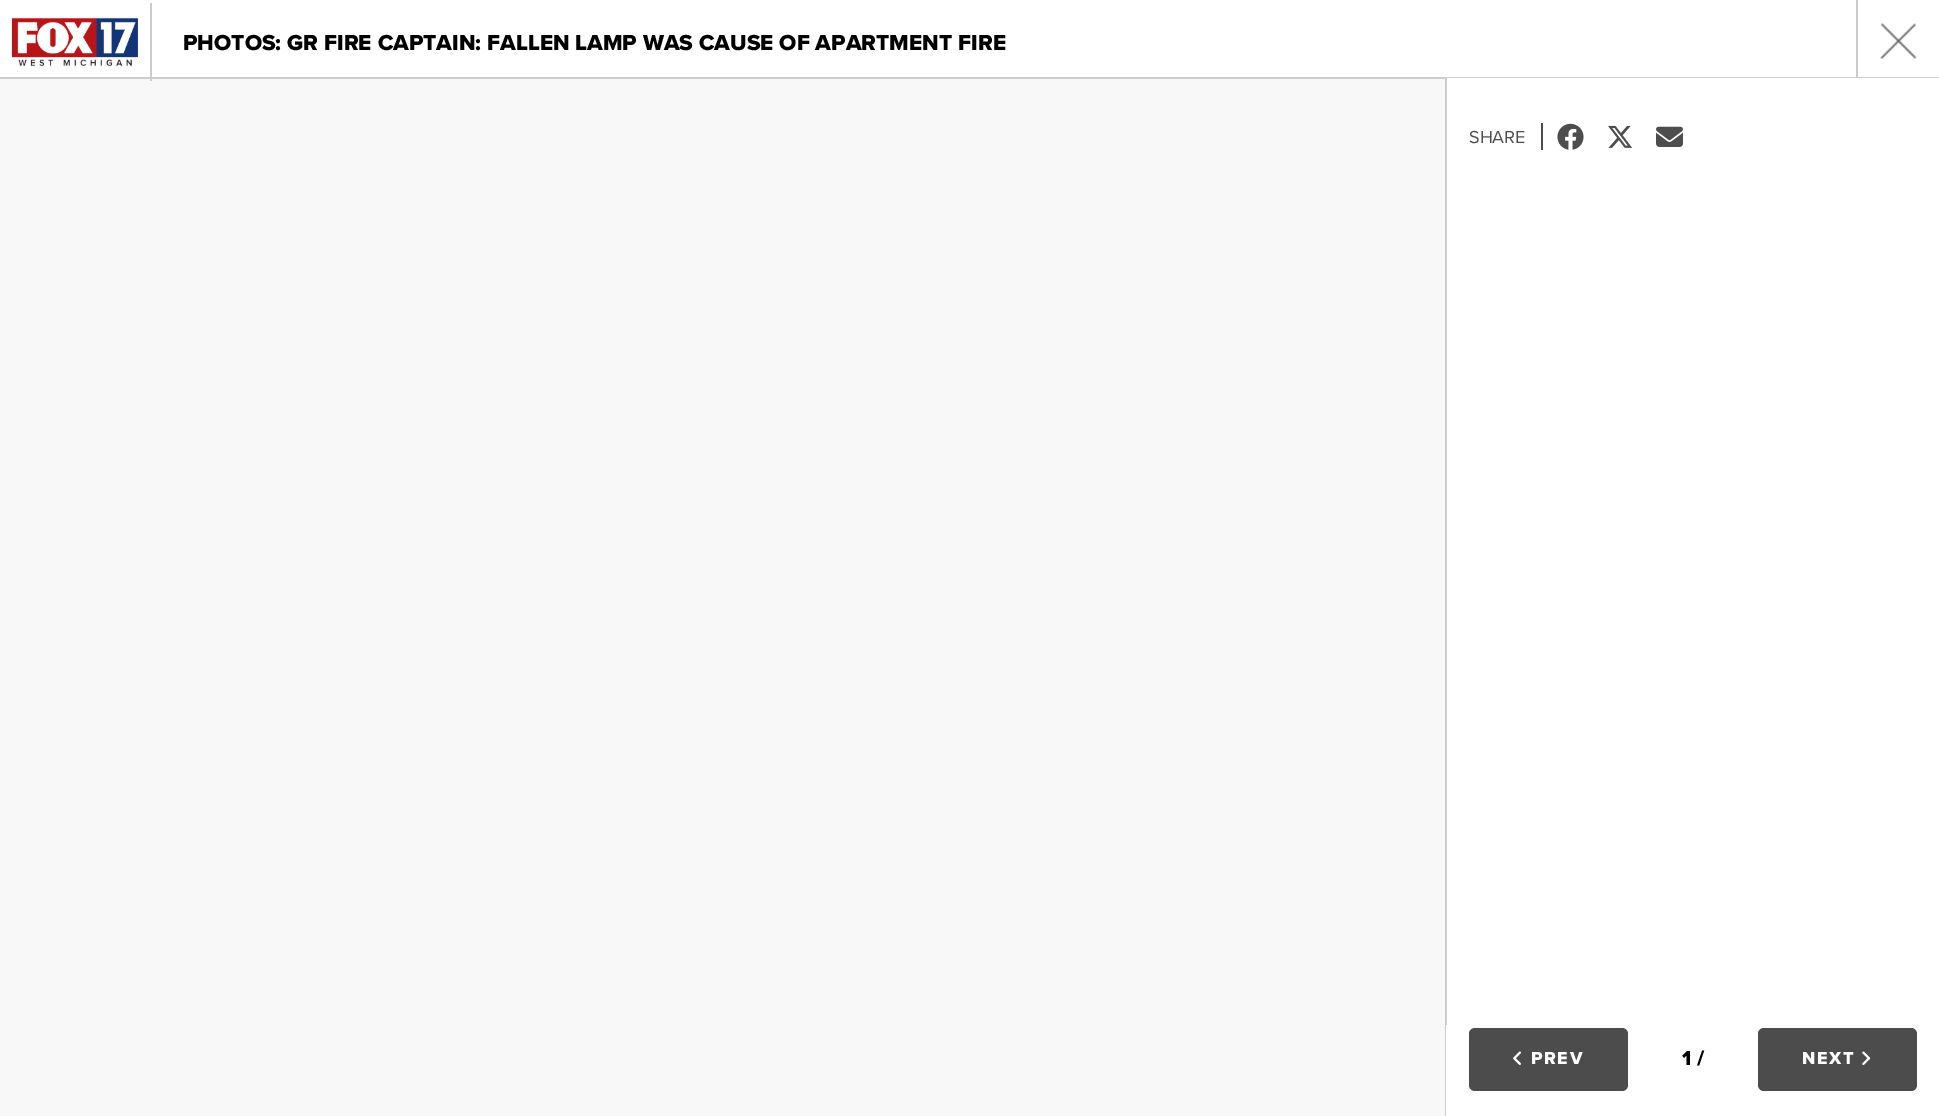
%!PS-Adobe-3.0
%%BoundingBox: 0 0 1939 1116
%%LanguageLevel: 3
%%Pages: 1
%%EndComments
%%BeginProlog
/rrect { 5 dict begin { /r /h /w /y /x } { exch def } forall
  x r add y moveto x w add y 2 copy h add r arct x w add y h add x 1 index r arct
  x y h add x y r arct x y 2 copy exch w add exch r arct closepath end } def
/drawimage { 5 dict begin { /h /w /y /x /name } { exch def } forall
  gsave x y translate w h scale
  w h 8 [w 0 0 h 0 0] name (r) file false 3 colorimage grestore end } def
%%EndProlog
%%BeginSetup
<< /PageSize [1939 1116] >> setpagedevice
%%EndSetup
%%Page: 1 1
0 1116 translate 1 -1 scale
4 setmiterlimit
0.973 setgray
0 0 1939 1116 rectfill
1 setgray
0 0 1939 77 rectfill
0.8 setgray
0 77 1939 2 rectfill
150 3 2 78 rectfill
(images/1.raw) 11 17 127 50 drawimage
1856 0 2 86 rectfill
(images/2.raw) 1880 23 37 36 drawimage
1 setgray
1447 78 492 947 rectfill
0.8 setgray
1445 78 2 1038 rectfill
0.302 setgray
1541 123 2 27 rectfill
(images/3.raw) 1557 123 27 27 drawimage
(images/4.raw) 1608 125 25 23 drawimage
(images/5.raw) 1656 126 27 21 drawimage
1 setgray
1446 1025 493 91 rectfill
0.298 setgray
1469 1028 159 63 6 rrect fill
(images/6.raw) 1513 1051 8 14 drawimage
1758 1028 159 63 6 rrect fill
(images/7.raw) 1862 1051 9 14 drawimage
/ProximaNova-ExtraBold [22.5 0 0 -22.5 0 0] selectfont
0 setgray
183 50 moveto (PHOTOS: GR FIRE CAPTAIN: FALLEN LAMP WAS CAUSE OF APARTMENT FIRE) show
/ProximaNova-Regular [18 0 0 -18 0 0] selectfont
0.302 setgray
1469 143 moveto (SHARE) show
/ProximaNova-ExtraBold [18 0 0 -18 0 0] selectfont
1 setgray
1531 1064 moveto 1.5 0 (PREV) ashow
/ProximaNova-ExtraBold [21 0 0 -21 0 0] selectfont
0 setgray
1682 1065 moveto (1 /) show
/ProximaNova-ExtraBold [18 0 0 -18 0 0] selectfont
1 setgray
1802 1064 moveto 1.5 0 (NEXT) ashow
showpage
%%EOF
